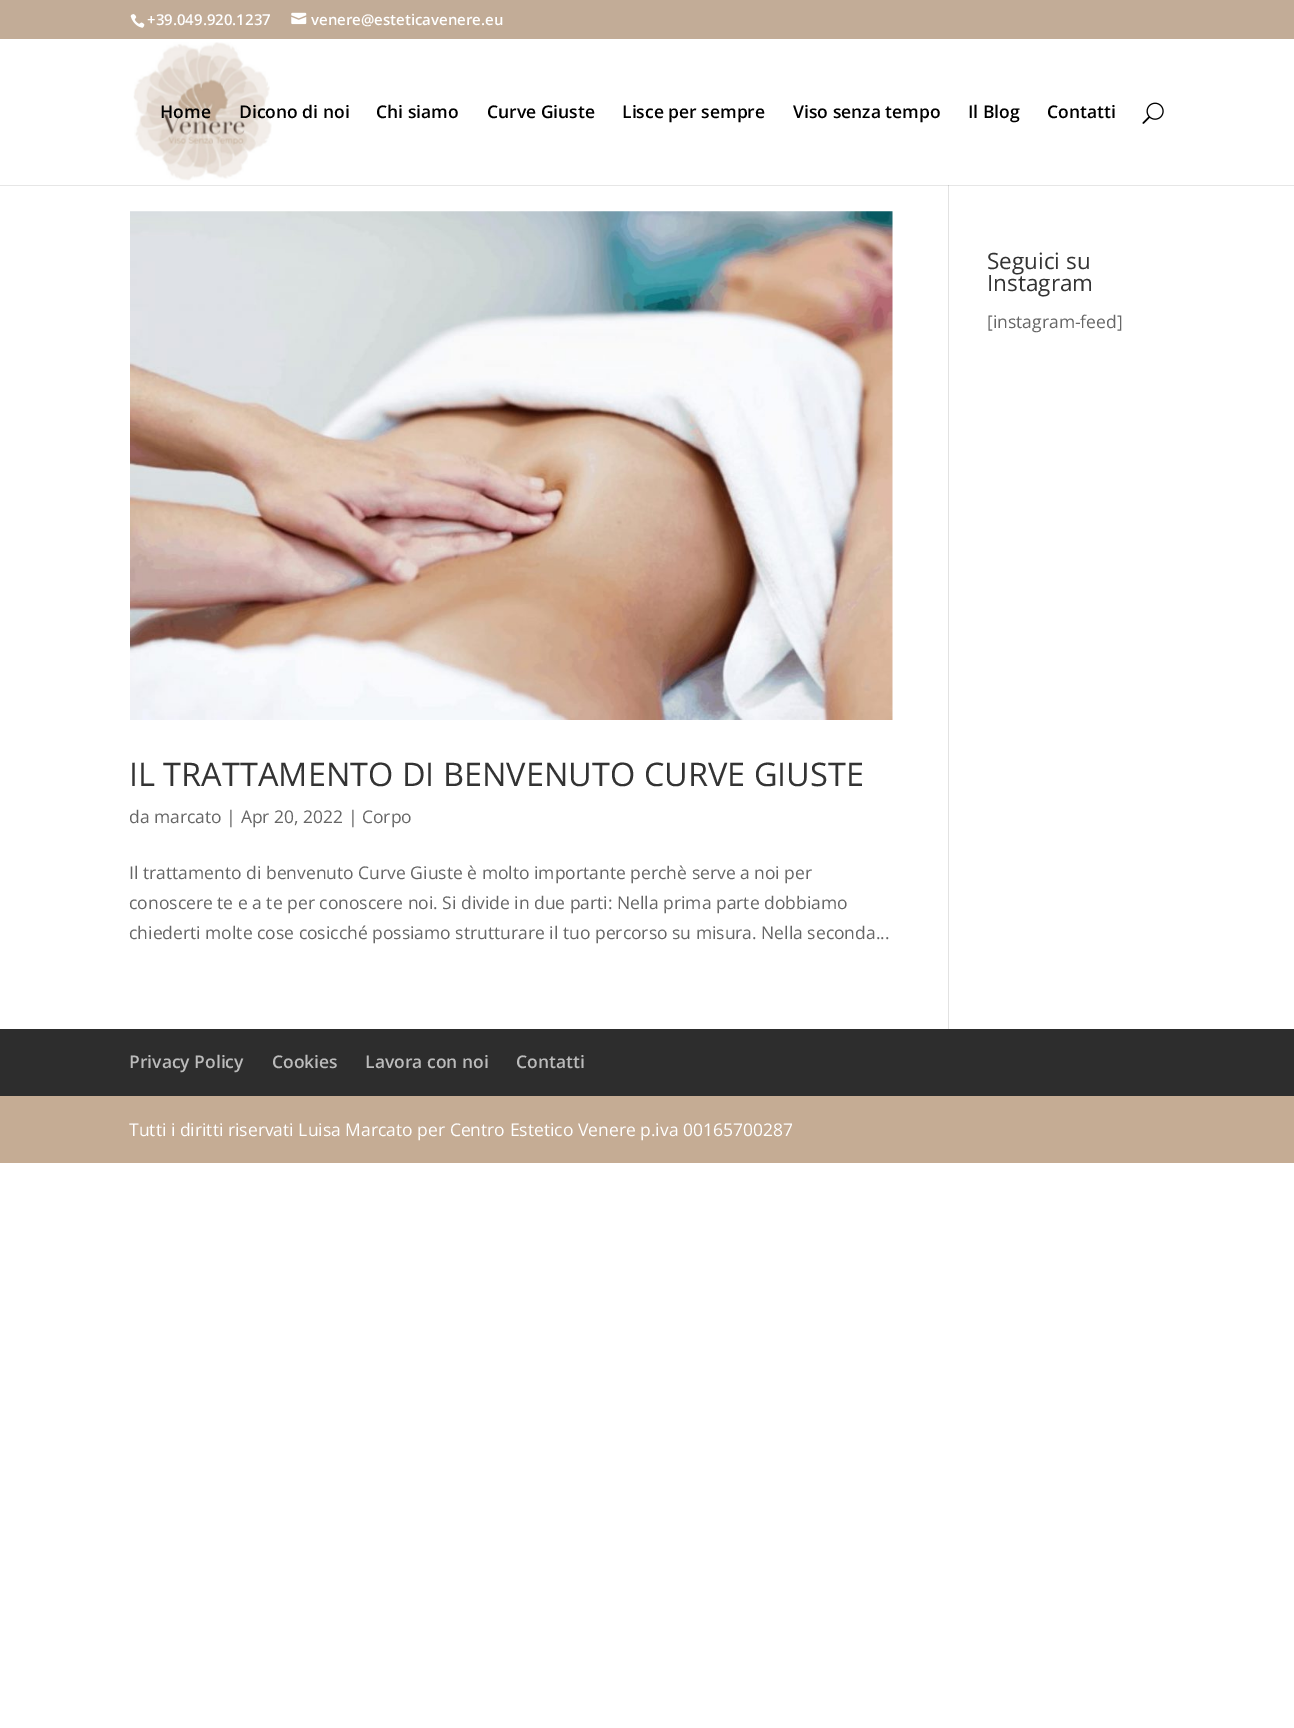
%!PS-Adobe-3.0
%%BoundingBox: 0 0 1294 1728
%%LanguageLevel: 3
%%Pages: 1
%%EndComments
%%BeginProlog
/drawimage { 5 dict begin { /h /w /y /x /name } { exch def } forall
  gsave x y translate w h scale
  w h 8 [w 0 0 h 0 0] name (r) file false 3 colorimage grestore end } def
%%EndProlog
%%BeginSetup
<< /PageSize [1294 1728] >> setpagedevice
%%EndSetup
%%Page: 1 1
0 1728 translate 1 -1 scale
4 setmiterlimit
1 setgray
0 0 1294 1728 rectfill
0.902 setgray
0 185 1294 1 rectfill
0.761 0.675 0.592 setrgbcolor
0 0 1294 39 rectfill
(images/1.raw) 130 14 15 14 drawimage
(images/2.raw) 291 12 16 13 drawimage
(images/3.raw) 133 42 139 139 drawimage
(images/4.raw) 1142 102 22 22 drawimage
0.886 setgray
948 186 1 843 rectfill
0.796 setgray
948 185 1 1 rectfill
(images/5.raw) 130 211 763 509 drawimage
0.176 setgray
0 1029 1294 67 rectfill
0.773 0.675 0.58 setrgbcolor
0 1096 1294 67 rectfill
/OpenSans-SemiBold [15 0 0 -15 0 0] selectfont
1 setgray
147 25 moveto (+39.049.920.1237) show
311 25 moveto (venere@esteticavenere.eu) show
/OpenSans-SemiBold [17.5 0 0 -17.5 0 0] selectfont
0 setgray
160 118 moveto (Home) show
239 118 moveto (Dicono di noi) show
376 118 moveto (Chi siamo) show
487 118 moveto (Curve Giuste) show
622 118 moveto (Lisce per sempre) show
793 118 moveto (Viso senza tempo) show
968 118 moveto (Il Blog) show
1047 118 moveto (Contatti) show
/OpenSans-Regular [22.5 0 0 -22.5 0 0] selectfont
0.2 setgray
987 269 moveto (Seguici su) show
987 291 moveto (Instagram) show
/OpenSans-Regular [17.5 0 0 -17.5 0 0] selectfont
0.4 setgray
987 328 moveto ([instagram-feed]) show
/OpenSans-Regular [32.5 0 0 -32.5 0 0] selectfont
0.2 setgray
129 786 moveto (IL TRATTAMENTO DI BENVENUTO CURVE GIUSTE) show
/OpenSans-Regular [17.5 0 0 -17.5 0 0] selectfont
0.4 setgray
129 823 moveto (da marcato | Apr 20, 2022 | Corpo) show
129 879 moveto (Il trattamento di benvenuto Curve Giuste è molto importante perchè serve a noi per) show
129 909 moveto (conoscere te e a te per conoscere noi. Si divide in due parti: Nella prima parte dobbiamo) show
129 939 moveto (chiederti molte cose cosicché possiamo strutturare il tuo percorso su misura. Nella seconda...) show
/OpenSans-SemiBold [17.5 0 0 -17.5 0 0] selectfont
0.733 setgray
129 1068 moveto (Privacy Policy) show
272 1068 moveto (Cookies) show
365 1068 moveto (Lavora con noi) show
516 1068 moveto (Contatti) show
/OpenSans-Regular [17.5 0 0 -17.5 0 0] selectfont
1 setgray
129 1136 moveto (Tutti i diritti riservati Luisa Marcato per Centro Estetico Venere p.iva 00165700287) show
showpage
%%EOF
